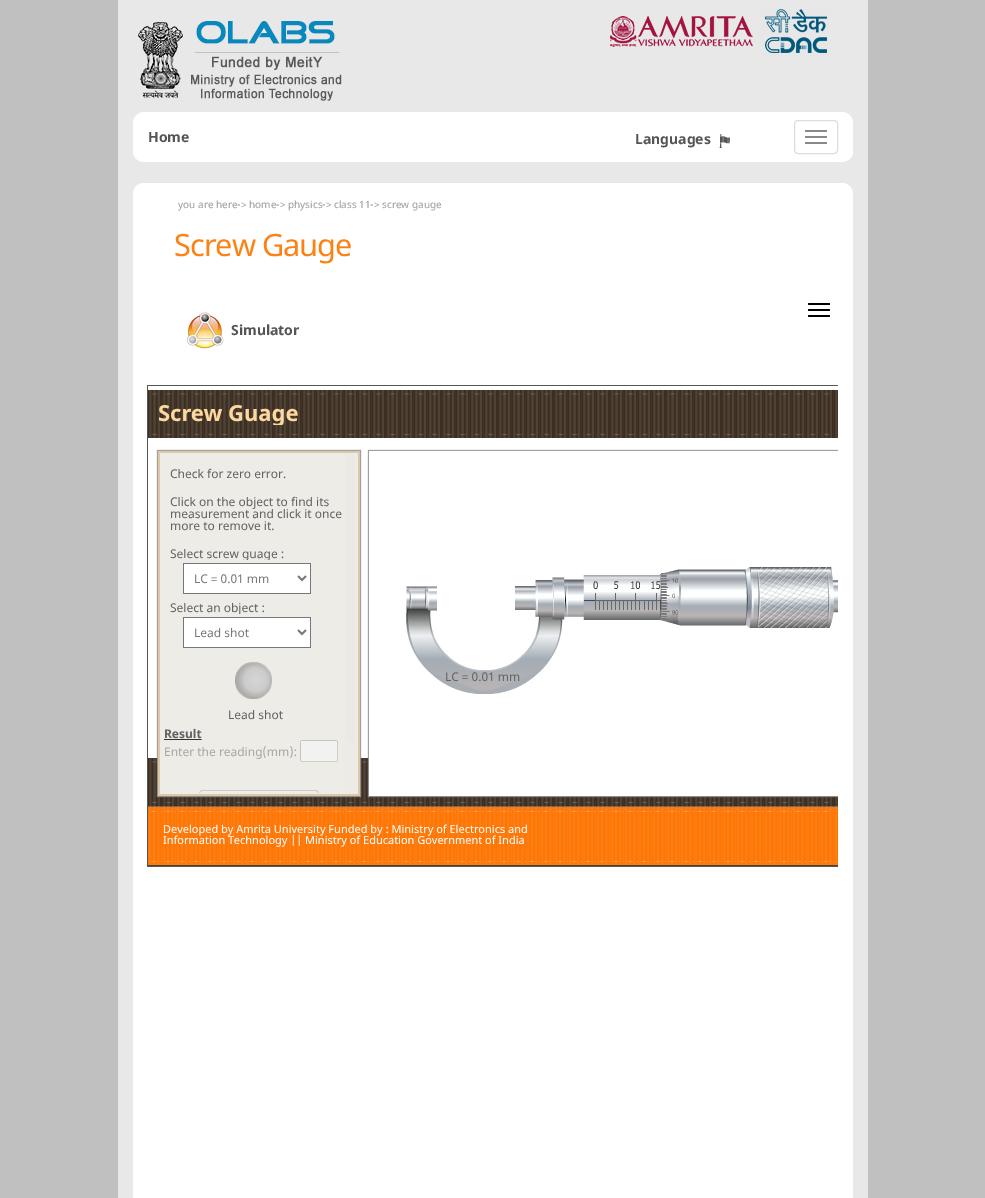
%!PS-Adobe-3.0
%%BoundingBox: 0 0 985 1198
%%LanguageLevel: 3
%%Pages: 1
%%EndComments
%%BeginProlog
/rrect { 5 dict begin { /r /h /w /y /x } { exch def } forall
  x r add y moveto x w add y 2 copy h add r arct x w add y h add x 1 index r arct
  x y h add x y r arct x y 2 copy exch w add exch r arct closepath end } def
/drawimage { 5 dict begin { /h /w /y /x /name } { exch def } forall
  gsave x y translate w h scale
  w h 8 [w 0 0 h 0 0] name (r) file false 3 colorimage grestore end } def
%%EndProlog
%%BeginSetup
<< /PageSize [985 1198] >> setpagedevice
%%EndSetup
%%Page: 1 1
0 1198 translate 1 -1 scale
4 setmiterlimit
0.753 setgray
0 0 985 1198 rectfill
0.91 setgray
118 0 750 1198 rectfill
(images/1.raw) 138 17 204 84 drawimage
(images/2.raw) 610 16 143 31 drawimage
(images/3.raw) 760 9 69 47 drawimage
1 setgray
newpath 144 112 moveto 842 112 lineto 848 112 853 117 853 123 curveto 853 152 lineto 853 157 848 162 842 162 curveto 144 162 lineto 138 162 133 157 133 152 curveto 133 123 lineto 133 117 138 112 144 112 curveto closepath fill
0.867 setgray
794.5 120.5 43 33 3.5 rrect stroke
0.533 setgray
805 130 22 2 1 rrect fill
805 136 22 2 1 rrect fill
805 142 22 2 1 rrect fill
(images/4.raw) 719 134 11 14 drawimage
1 setgray
133 183 720 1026 11 rrect fill
0 setgray
808 303 22 2 1 rrect fill
808 309 22 2 1 rrect fill
808 315 22 2 1 rrect fill
(images/5.raw) 187 312 37 37 drawimage
(images/6.raw) 147 385 691 482 drawimage
/NotoSans-Bold [14 0 0 -14 0 0] selectfont
0.333 setgray
148 142 moveto (Home) show
635 144 moveto (Languages) show
/NotoSans-Regular [10 0 0 -10 0 0] selectfont
0.6 setgray
178 208 moveto (you are here->) show
249 208 moveto (home->) show
288 208 moveto (physics->) show
334 208 moveto (class 11->) show
382 208 moveto (screw gauge) show
/NotoSans-Regular [30.75 0 0 -30.75 0 0] selectfont
0.988 0.51 0.082 setrgbcolor
174 256 moveto -1 0 (Screw Gauge) ashow
/NotoSans-Bold [14 0 0 -14 0 0] selectfont
0.333 setgray
231 335 moveto (Simulator) show
showpage
%%EOF
